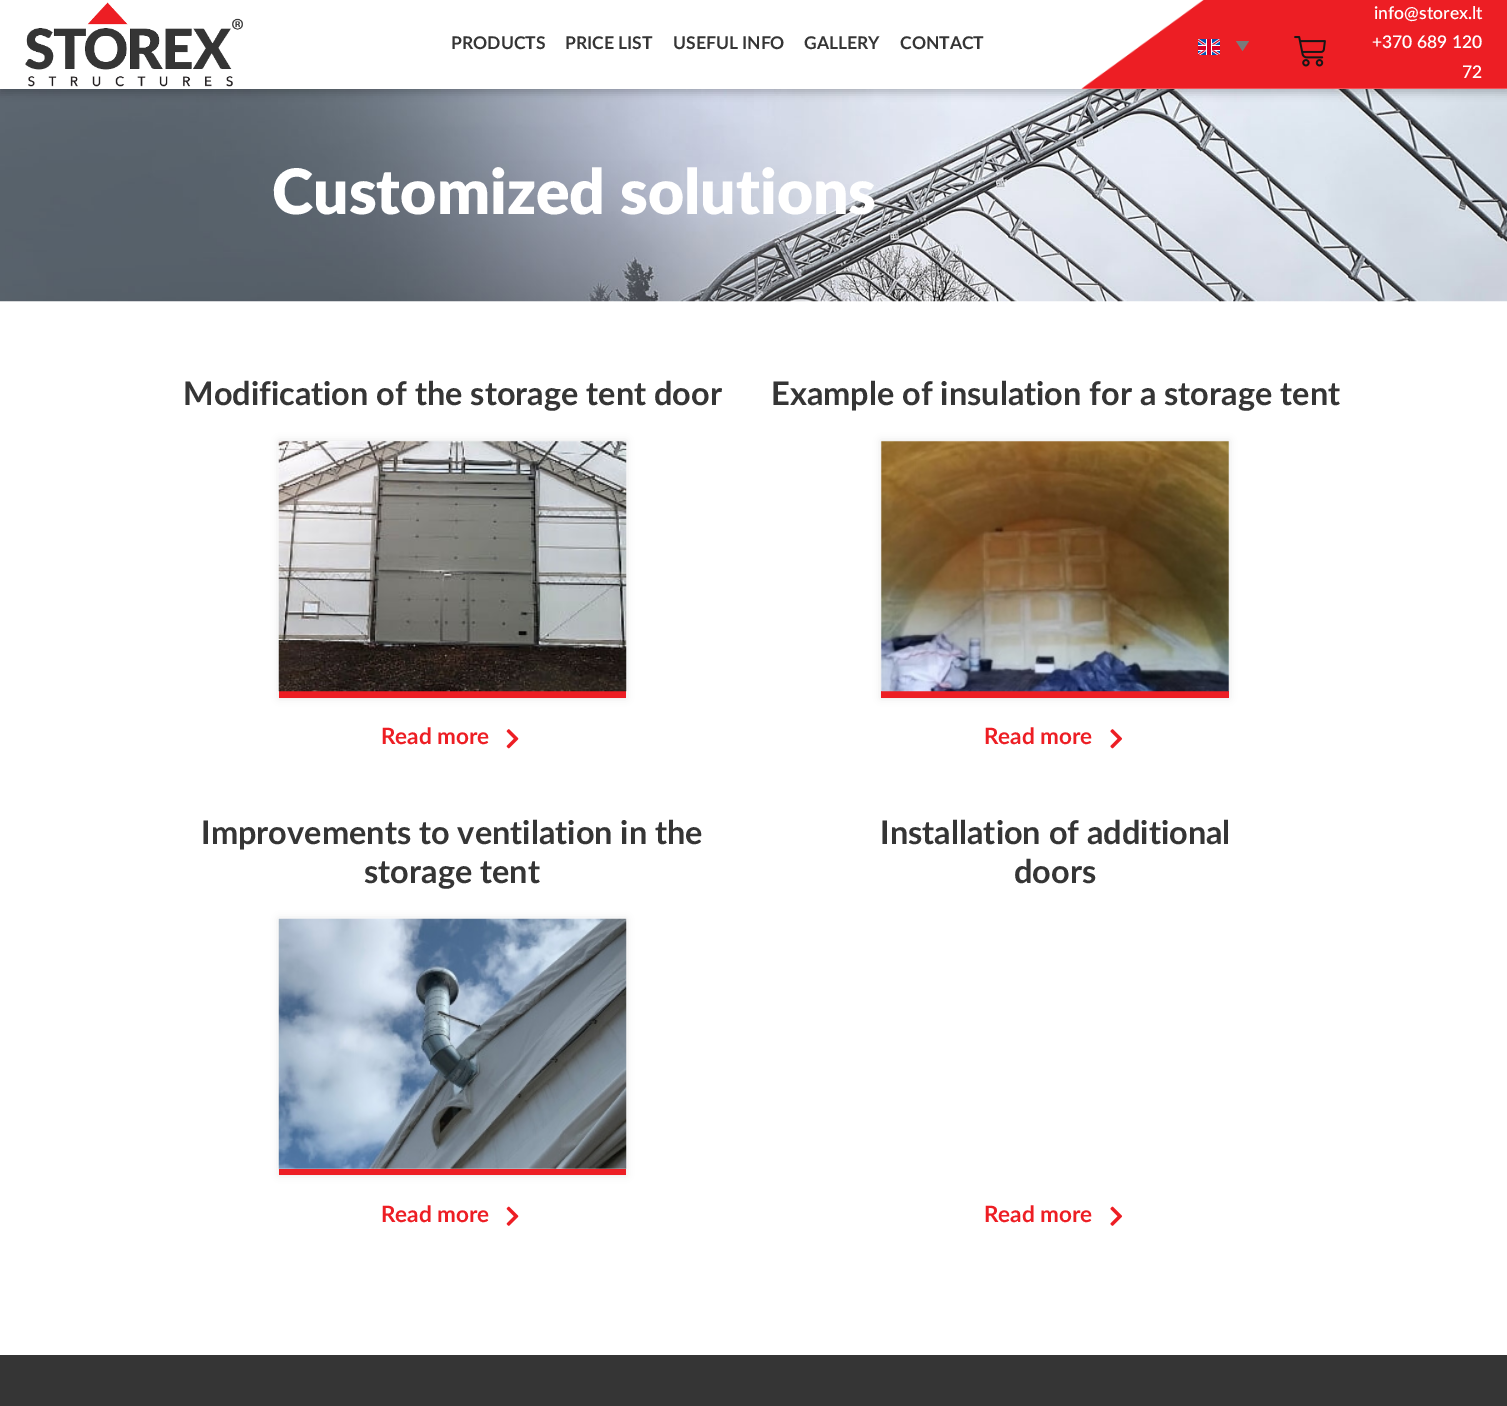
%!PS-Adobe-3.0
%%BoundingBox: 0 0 1507 1406
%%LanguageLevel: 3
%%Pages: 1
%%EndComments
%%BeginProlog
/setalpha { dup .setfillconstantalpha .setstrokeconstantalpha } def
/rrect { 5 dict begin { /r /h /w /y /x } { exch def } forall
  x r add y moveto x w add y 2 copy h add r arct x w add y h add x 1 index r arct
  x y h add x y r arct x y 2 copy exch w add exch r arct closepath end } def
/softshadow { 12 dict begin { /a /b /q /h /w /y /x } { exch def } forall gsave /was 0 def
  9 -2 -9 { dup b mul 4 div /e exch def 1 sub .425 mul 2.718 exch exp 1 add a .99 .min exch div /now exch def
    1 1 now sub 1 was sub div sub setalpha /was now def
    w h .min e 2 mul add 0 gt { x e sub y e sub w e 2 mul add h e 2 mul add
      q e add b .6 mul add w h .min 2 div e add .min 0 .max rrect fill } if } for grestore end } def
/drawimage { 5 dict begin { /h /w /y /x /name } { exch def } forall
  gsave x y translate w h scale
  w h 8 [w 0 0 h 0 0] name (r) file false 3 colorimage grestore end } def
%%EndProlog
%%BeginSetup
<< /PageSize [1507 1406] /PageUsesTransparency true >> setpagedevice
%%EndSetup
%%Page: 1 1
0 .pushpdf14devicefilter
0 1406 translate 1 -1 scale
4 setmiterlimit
1 setgray
0 0 1507 1406 rectfill
(images/5.raw) 0 89 1507 213 drawimage
0 setgray
0 4 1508 89 0 4 0.2 softshadow
1 setgray
0 0 1507 89 rectfill
(images/1.raw) 1081 0 426 89 drawimage
(images/2.raw) 25 2 218 85 drawimage
(images/3.raw) 1198 39 22 16 drawimage
0.478 setgray
newpath 1236 41 moveto 1249 41 lineto 1242.5 51 lineto closepath fill
(images/4.raw) 1294 36 32 31 drawimage
0 setgray
279 441 347 257 0 4 0.1 softshadow
0.929 0.118 0.141 setrgbcolor
279 691 347 7 rectfill
(images/6.raw) 278 441 349 251 drawimage
(images/7.raw) 506 729 13 20 drawimage
0 setgray
881 441 348 257 0 4 0.1 softshadow
0.929 0.118 0.141 setrgbcolor
881 691 348 7 rectfill
(images/8.raw) 881 441 348 251 drawimage
(images/9.raw) 1110 729 13 20 drawimage
0 setgray
279 919 347 256 0 4 0.1 softshadow
0.929 0.118 0.141 setrgbcolor
279 1169 347 6 rectfill
(images/10.raw) 278 918 349 251 drawimage
(images/11.raw) 506 1206 13 20 drawimage
(images/12.raw) 1110 1206 13 20 drawimage
0.208 setgray
0 1355 1507 51 rectfill
/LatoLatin-Bold [17.5 0 0 -17.5 0 0] selectfont
451 49 moveto (PRODUCTS) show
565 49 moveto (PRICE LIST) show
673 49 moveto (USEFUL INFO) show
804 49 moveto (GALLERY) show
900 49 moveto (CONTACT) show
/LatoLatin-SemiBold [17.5 0 0 -17.5 0 0] selectfont
1 setgray
1374 19 moveto (info@storex.lt) show
1372 48 moveto (+370 689 120) show
1462 78 moveto (72) show
/LatoLatin-Black [62.5 0 0 -62.5 0 0] selectfont
272 214 moveto (Customized solutions) show
/LatoLatin-Bold [32.5 0 0 -32.5 0 0] selectfont
0.208 setgray
183 405 moveto (Modification of the storage tent door) show
/LatoLatin-Bold [22.5 0 0 -22.5 0 0] selectfont
0.929 0.118 0.141 setrgbcolor
381 744 moveto (Read more) show
/LatoLatin-Bold [32.5 0 0 -32.5 0 0] selectfont
0.208 setgray
771 405 moveto (Example of insulation for a storage tent) show
/LatoLatin-Bold [22.5 0 0 -22.5 0 0] selectfont
0.929 0.118 0.141 setrgbcolor
984 744 moveto (Read more) show
/LatoLatin-Bold [32.5 0 0 -32.5 0 0] selectfont
0.208 setgray
201 844 moveto (Improvements to ventilation in the) show
364 883 moveto (storage tent) show
/LatoLatin-Bold [22.5 0 0 -22.5 0 0] selectfont
0.929 0.118 0.141 setrgbcolor
381 1222 moveto (Read more) show
/LatoLatin-Bold [32.5 0 0 -32.5 0 0] selectfont
0.208 setgray
880 844 moveto (Installation of additional) show
1014 883 moveto (doors) show
/LatoLatin-Bold [22.5 0 0 -22.5 0 0] selectfont
0.929 0.118 0.141 setrgbcolor
984 1222 moveto (Read more) show
.poppdf14devicefilter showpage
%%EOF
